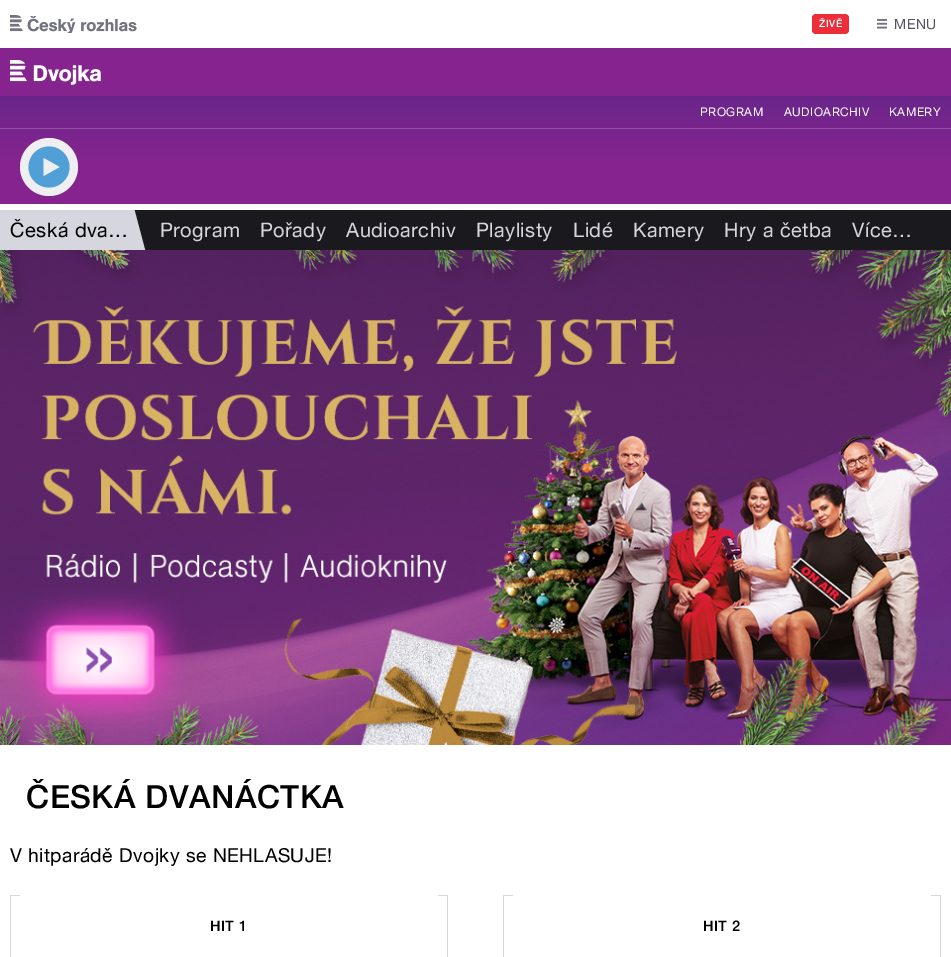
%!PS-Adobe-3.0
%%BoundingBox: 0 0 951 957
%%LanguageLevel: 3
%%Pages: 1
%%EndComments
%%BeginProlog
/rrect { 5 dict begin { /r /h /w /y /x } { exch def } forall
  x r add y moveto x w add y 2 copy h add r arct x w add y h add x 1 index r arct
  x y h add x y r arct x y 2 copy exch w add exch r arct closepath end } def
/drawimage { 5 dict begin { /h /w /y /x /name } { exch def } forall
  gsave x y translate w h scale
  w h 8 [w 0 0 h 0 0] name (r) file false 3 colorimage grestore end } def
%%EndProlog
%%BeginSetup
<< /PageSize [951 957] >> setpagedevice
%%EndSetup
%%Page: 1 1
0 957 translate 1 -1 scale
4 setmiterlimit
1 setgray
0 0 951 957 rectfill
(images/1.raw) 10 15 127 18 drawimage
0.929 0.18 0.22 setrgbcolor
812 14 37 20 4 rrect fill
(images/2.raw) 877 19 10 10 drawimage
0.522 0.141 0.561 setrgbcolor
0 48 951 48 rectfill
(images/3.raw) 10 60 91 25 drawimage
gsave newpath 0 96 moveto 951 96 lineto 951 204 lineto 0 204 lineto closepath clip newpath
<< /ShadingType 2 /ColorSpace /DeviceRGB /Coords [476 96 476 204] /Extend [true true] /Function << /FunctionType 3 /Domain [0 1] /Functions [<< /FunctionType 2 /Domain [0 1] /C0 [0.416 0.149 0.545] /C1 [0.522 0.141 0.561] /N 1 >> << /FunctionType 2 /Domain [0 1] /C0 [0.522 0.141 0.561] /C1 [0.522 0.141 0.561] /N 1 >>] /Bounds [0.6] /Encode [0 1 0 1] >> >> shfill grestore
0.576 0.318 0.643 setrgbcolor
0 128 951 1 rectfill
0.937 0.937 0.949 setrgbcolor
newpath 49 167 29 0 360 arc closepath fill
0.318 0.624 0.843 setrgbcolor
newpath 49 167 20.5 0 360 arc closepath fill
0.937 0.937 0.949 setrgbcolor
newpath 43.5 158 moveto 59.5 167 lineto 43.5 176 lineto closepath fill
0.839 0.839 0.871 setrgbcolor
0 210 146 40 rectfill
gsave
0 210 150 40 rectclip
0.102 0.102 0.118 setrgbcolor
newpath 134 207 moveto 183 194 lineto 196 243 lineto 147 256 lineto closepath fill
grestore
0.102 0.102 0.118 setrgbcolor
150 210 801 40 rectfill
(images/4.raw) 0 250 951 495 drawimage
0.839 0.839 0.871 setrgbcolor
10 895 10 1 rectfill
10 895 1 62 rectfill
438 895 10 1 rectfill
447 895 1 62 rectfill
503 895 10 1 rectfill
503 895 1 62 rectfill
931 895 10 1 rectfill
940 895 1 62 rectfill
/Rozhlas-Medium [10 0 0 -10 0 0] selectfont
1 setgray
819 27 moveto 0.5 0 (ŽIVĚ) ashow
/Rozhlas-Regular [14 0 0 -14 0 0] selectfont
0.333 0.333 0.38 setrgbcolor
894 29 moveto 0.5 0 (MENU) ashow
/Rozhlas-Regular [12 0 0 -12 0 0] selectfont
1 setgray
700 116 moveto 0.5 0 (PROGRAM) ashow
784 116 moveto 0.5 0 (AUDIOARCHIV) ashow
889 116 moveto 0.5 0 (KAMERY) ashow
/Rozhlas-Regular [20 0 0 -20 0 0] selectfont
0 setgray
10 237 moveto 0.5 0 (Česká dva…) ashow
0.839 0.839 0.871 setrgbcolor
160 237 moveto 0.5 0 (Program) ashow
260 237 moveto 0.5 0 (Pořady) ashow
346 237 moveto 0.5 0 (Audioarchiv) ashow
476 237 moveto 0.5 0 (Playlisty) ashow
573 237 moveto 0.5 0 (Lidé) ashow
633 237 moveto 0.5 0 (Kamery) ashow
724 237 moveto 0.5 0 (Hry a četba) ashow
852 237 moveto 0.5 0 (Více…) ashow
/Rozhlas-Medium [32 0 0 -32 0 0] selectfont
0 setgray
26 808 moveto 0.5 0 (ČESKÁ DVANÁCTKA) ashow
/Rozhlas-Regular [19.25 0 0 -19.25 0 0] selectfont
10 862 moveto 0.5 0 (V hitparádě Dvojky se NEHLASUJE!) ashow
/Rozhlas-Medium [14.5 0 0 -14.5 0 0] selectfont
210 931 moveto 0.5 0 (HIT 1) ashow
703 931 moveto 0.5 0 (HIT 2) ashow
showpage
%%EOF
